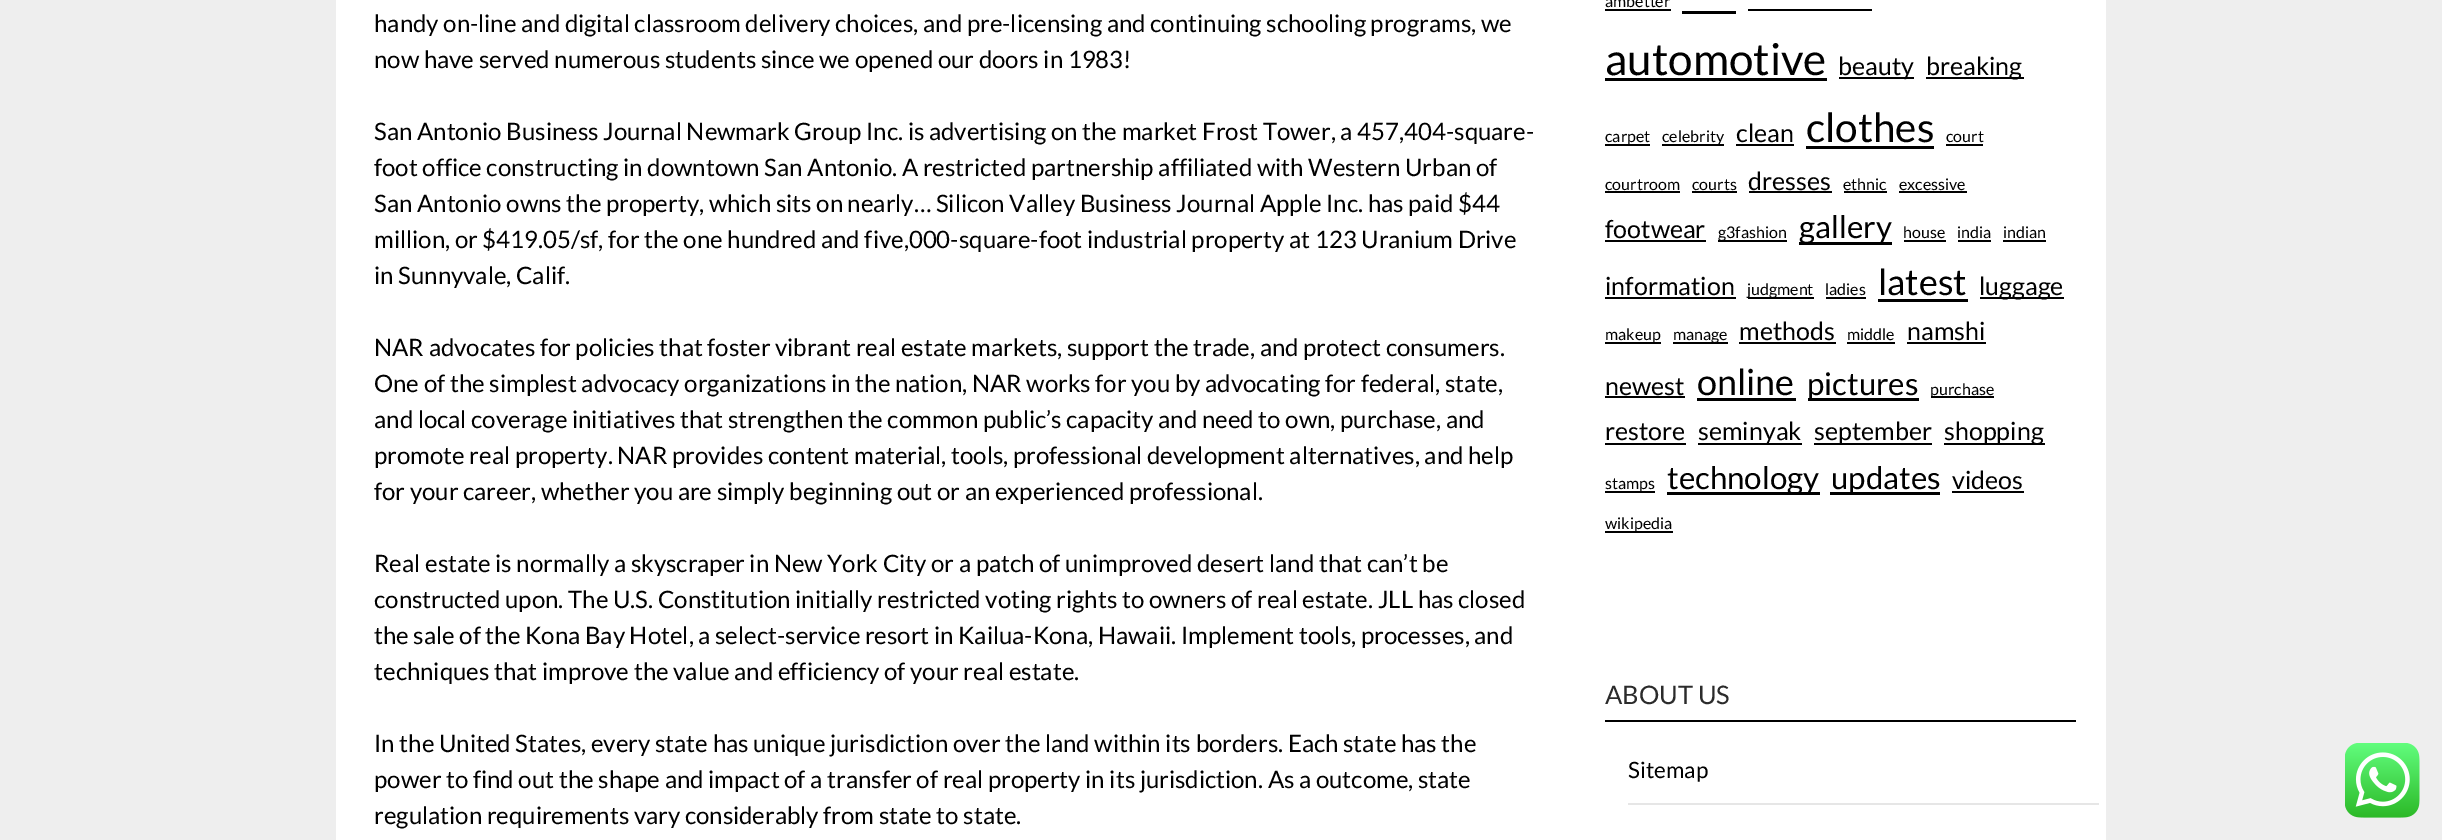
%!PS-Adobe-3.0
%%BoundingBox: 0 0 2442 840
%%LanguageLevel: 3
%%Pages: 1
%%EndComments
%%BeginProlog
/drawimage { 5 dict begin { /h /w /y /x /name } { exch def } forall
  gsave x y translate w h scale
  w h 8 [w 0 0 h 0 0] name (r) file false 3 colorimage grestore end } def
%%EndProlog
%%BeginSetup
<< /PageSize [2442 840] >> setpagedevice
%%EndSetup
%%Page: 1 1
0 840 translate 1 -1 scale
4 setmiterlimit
0.933 setgray
0 0 2442 840 rectfill
1 setgray
336 0 1770 840 rectfill
0 setgray
1605 9 66 2 rectfill
1748 9 124 2 rectfill
1682 11 54 3 rectfill
1605 78 222 3 rectfill
1839 77 75 2 rectfill
1926 77 98 2 rectfill
1605 144 45 2 rectfill
1662 144 62 2 rectfill
1736 144 58 2 rectfill
1806 146 128 3 rectfill
1946 144 37 2 rectfill
1605 191 75 2 rectfill
1692 191 45 2 rectfill
1749 191 83 2 rectfill
1844 191 43 2 rectfill
1899 191 68 2 rectfill
1605 240 101 2 rectfill
1718 240 69 2 rectfill
1799 242 93 3 rectfill
1904 240 42 2 rectfill
1958 240 33 2 rectfill
2003 240 43 2 rectfill
1605 297 131 2 rectfill
1748 297 66 2 rectfill
1826 297 40 2 rectfill
1878 299 90 3 rectfill
1980 297 84 2 rectfill
1605 342 56 2 rectfill
1673 342 55 2 rectfill
1739 342 97 2 rectfill
1847 342 48 2 rectfill
1907 342 79 2 rectfill
1605 396 80 2 rectfill
1697 398 99 3 rectfill
1808 398 111 3 rectfill
1931 396 63 2 rectfill
1605 443 81 2 rectfill
1698 443 104 2 rectfill
1814 443 118 2 rectfill
1944 443 101 2 rectfill
1605 491 50 2 rectfill
1667 492 153 3 rectfill
1830 492 110 3 rectfill
1952 491 72 2 rectfill
1605 531 68 2 rectfill
1605 720 471 2 rectfill
0.902 setgray
1628 803 471 2 rectfill
(images/1.raw) 2345 743 75 75 drawimage
/Lato-Regular [24 0 0 -24 0 0] selectfont
0 setgray
374 32 moveto (handy on-line and digital classroom delivery choices, and pre-licensing and continuing schooling programs, we) show
374 68 moveto (now have served numerous students since we opened our doors in 1983!) show
374 140 moveto (San Antonio Business Journal Newmark Group Inc. is advertising on the market Frost Tower, a 457,404-square-) show
374 176 moveto (foot office constructing in downtown San Antonio. A restricted partnership affiliated with Western Urban of) show
374 212 moveto (San Antonio owns the property, which sits on nearly… Silicon Valley Business Journal Apple Inc. has paid $44) show
374 248 moveto (million, or $419.05/sf, for the one hundred and five,000-square-foot industrial property at 123 Uranium Drive) show
374 284 moveto (in Sunnyvale, Calif.) show
374 356 moveto (NAR advocates for policies that foster vibrant real estate markets, support the trade, and protect consumers.) show
374 392 moveto (One of the simplest advocacy organizations in the nation, NAR works for you by advocating for federal, state,) show
374 428 moveto (and local coverage initiatives that strengthen the common public’s capacity and need to own, purchase, and) show
374 464 moveto (promote real property. NAR provides content material, tools, professional development alternatives, and help) show
374 500 moveto (for your career, whether you are simply beginning out or an experienced professional.) show
374 572 moveto (Real estate is normally a skyscraper in New York City or a patch of unimproved desert land that can’t be) show
374 608 moveto (constructed upon. The U.S. Constitution initially restricted voting rights to owners of real estate. JLL has closed) show
374 644 moveto (the sale of the Kona Bay Hotel, a select-service resort in Kailua-Kona, Hawaii. Implement tools, processes, and) show
374 680 moveto (techniques that improve the value and efficiency of your real estate.) show
374 752 moveto (In the United States, every state has unique jurisdiction over the land within its borders. Each state has the) show
374 788 moveto (power to find out the shape and impact of a transfer of real property in its jurisdiction. As a outcome, state) show
374 824 moveto (regulation requirements vary considerably from state to state.) show
/Lato-Regular [16 0 0 -16 0 0] selectfont
1605 7 moveto (ambetter) show
/Lato-Regular [44 0 0 -44 0 0] selectfont
1605 75 moveto (automotive) show
/Lato-Regular [25 0 0 -25 0 0] selectfont
1838 75 moveto (beauty) show
1926 75 moveto (breaking) show
/Lato-Regular [16 0 0 -16 0 0] selectfont
1605 142 moveto (carpet) show
1662 142 moveto (celebrity) show
/Lato-Regular [25 0 0 -25 0 0] selectfont
1736 142 moveto (clean) show
/Lato-Regular [40.5 0 0 -40.5 0 0] selectfont
1806 142 moveto (clothes) show
/Lato-Regular [16 0 0 -16 0 0] selectfont
1946 142 moveto (court) show
1605 190 moveto (courtroom) show
1692 190 moveto (courts) show
/Lato-Regular [25 0 0 -25 0 0] selectfont
1748 190 moveto (dresses) show
/Lato-Regular [16 0 0 -16 0 0] selectfont
1843 190 moveto (ethnic) show
1899 190 moveto (excessive) show
/Lato-Regular [25 0 0 -25 0 0] selectfont
1605 238 moveto (footwear) show
/Lato-Regular [16 0 0 -16 0 0] selectfont
1718 238 moveto (g3fashion) show
/Lato-Regular [31.25 0 0 -31.25 0 0] selectfont
1799 238 moveto (gallery) show
/Lato-Regular [16 0 0 -16 0 0] selectfont
1903 238 moveto (house) show
1957 238 moveto (india) show
2003 238 moveto (indian) show
/Lato-Regular [25 0 0 -25 0 0] selectfont
1605 295 moveto (information) show
/Lato-Regular [16 0 0 -16 0 0] selectfont
1747 295 moveto (judgment) show
1825 295 moveto (ladies) show
/Lato-Regular [36 0 0 -36 0 0] selectfont
1878 295 moveto (latest) show
/Lato-Regular [25 0 0 -25 0 0] selectfont
1979 295 moveto (luggage) show
/Lato-Regular [16 0 0 -16 0 0] selectfont
1605 340 moveto (makeup) show
1673 340 moveto (manage) show
/Lato-Regular [25 0 0 -25 0 0] selectfont
1739 340 moveto (methods) show
/Lato-Regular [16 0 0 -16 0 0] selectfont
1847 340 moveto (middle) show
/Lato-Regular [25 0 0 -25 0 0] selectfont
1907 340 moveto (namshi) show
1605 395 moveto (newest) show
/Lato-Regular [36 0 0 -36 0 0] selectfont
1697 395 moveto (online) show
/Lato-Regular [31.25 0 0 -31.25 0 0] selectfont
1807 395 moveto (pictures) show
/Lato-Regular [16 0 0 -16 0 0] selectfont
1930 395 moveto (purchase) show
/Lato-Regular [25 0 0 -25 0 0] selectfont
1605 440 moveto (restore) show
1698 440 moveto (seminyak) show
1814 440 moveto (september) show
1944 440 moveto (shopping) show
/Lato-Regular [16 0 0 -16 0 0] selectfont
1605 489 moveto (stamps) show
/Lato-Regular [31.25 0 0 -31.25 0 0] selectfont
1667 489 moveto (technology) show
1831 489 moveto (updates) show
/Lato-Regular [25 0 0 -25 0 0] selectfont
1952 489 moveto (videos) show
/Lato-Regular [16 0 0 -16 0 0] selectfont
1605 529 moveto (wikipedia) show
/Lato-Regular [25.5 0 0 -25.5 0 0] selectfont
0.169 setgray
1605 704 moveto (ABOUT US) show
/Lato-Regular [22.5 0 0 -22.5 0 0] selectfont
0 setgray
1628 778 moveto (Sitemap) show
showpage
%%EOF
